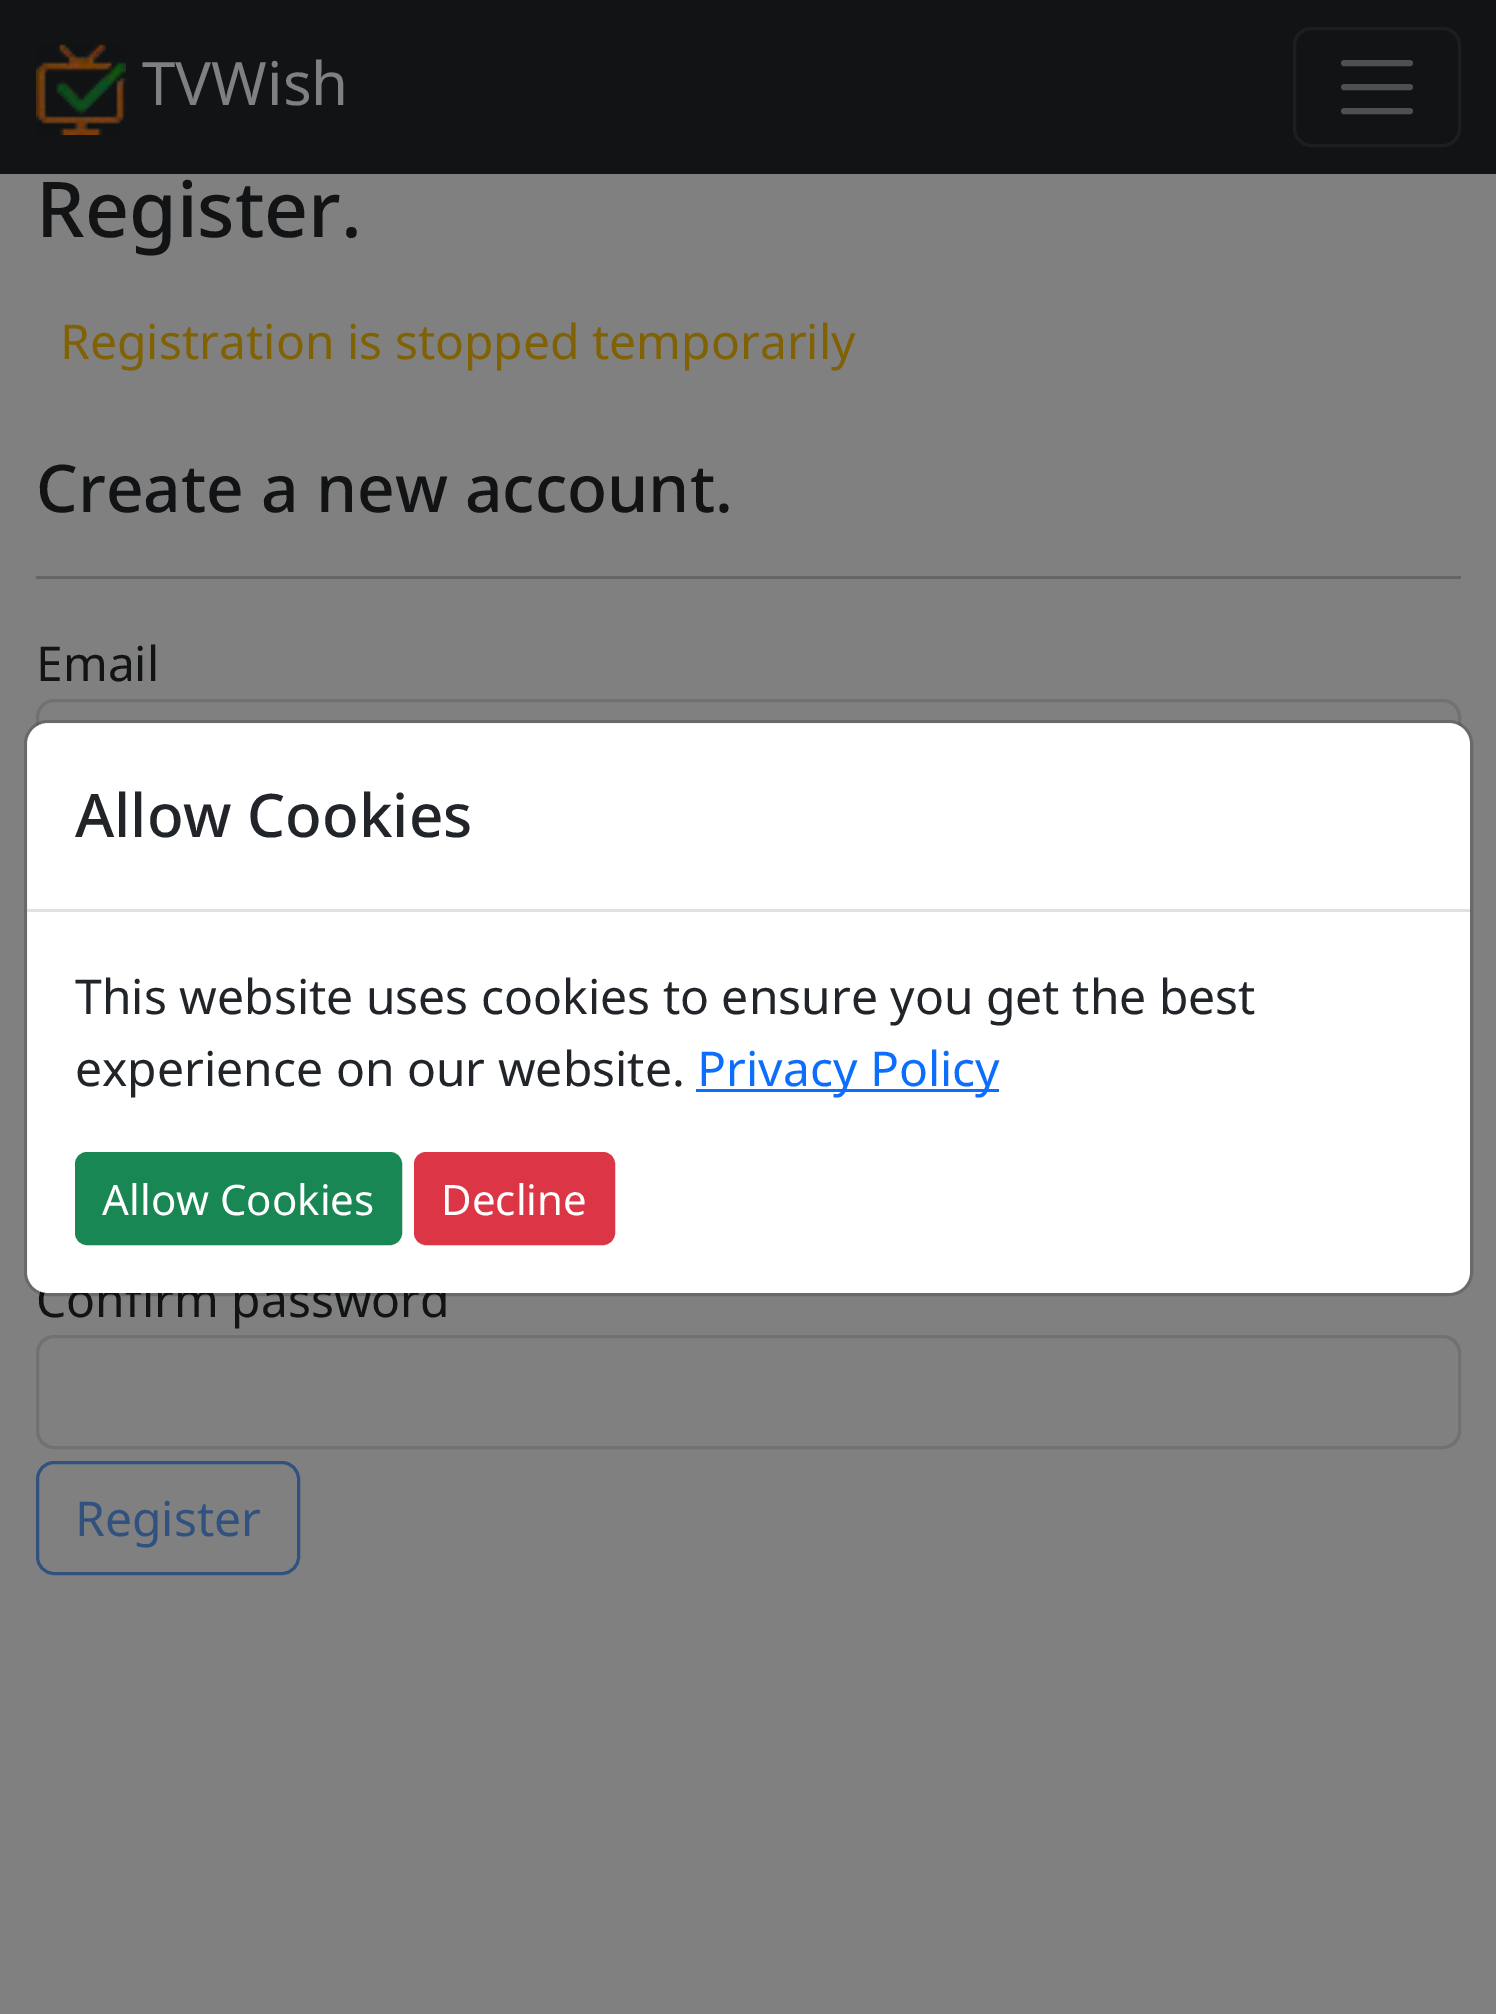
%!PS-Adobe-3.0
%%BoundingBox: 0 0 1496 2014
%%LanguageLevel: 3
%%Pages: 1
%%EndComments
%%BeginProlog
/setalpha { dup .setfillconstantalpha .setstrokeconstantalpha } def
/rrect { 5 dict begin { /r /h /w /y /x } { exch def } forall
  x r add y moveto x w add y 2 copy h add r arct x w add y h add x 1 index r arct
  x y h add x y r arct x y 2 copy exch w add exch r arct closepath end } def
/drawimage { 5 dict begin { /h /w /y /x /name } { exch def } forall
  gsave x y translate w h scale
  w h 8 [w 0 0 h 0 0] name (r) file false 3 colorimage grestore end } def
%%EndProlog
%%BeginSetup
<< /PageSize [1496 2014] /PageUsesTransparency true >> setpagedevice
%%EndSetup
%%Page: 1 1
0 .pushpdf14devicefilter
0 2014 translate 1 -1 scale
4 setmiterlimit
0.502 setgray
0 0 1496 2014 rectfill
0.067 0.075 0.082 setrgbcolor
0 0 1496 174 rectfill
(images/1.raw) 36 44 90 91 drawimage
0.11 0.118 0.122 setrgbcolor
3 setlinewidth
1294.5 28.5 165 117 16.5 rrect stroke
0.306 0.31 0.314 setrgbcolor
6 setlinewidth
1 setlinecap
newpath 1344 63 moveto 1410 63 lineto 1344 87 moveto 1410 87 lineto 1344 111 moveto 1410 111 lineto stroke
0.392 0.396 0.396 setrgbcolor
36 576 1425 3 rectfill
0.435 0.443 0.451 setrgbcolor
3 setlinewidth
0 setlinecap
37.5 700.5 1422 111 16.5 rrect stroke
37.5 1336.5 1422 111 16.5 rrect stroke
0.192 0.318 0.498 setrgbcolor
37.5 1462.5 261 111 16.5 rrect stroke
/NotoSans-Regular [60 0 0 -60 0 0] selectfont
0.502 setgray
142 105 moveto (TVWish) show
/NotoSans-Medium [77 0 0 -77 0 0] selectfont
0.067 0.075 0.082 setrgbcolor
36 237 moveto (Register.) show
/NotoSans-Regular [48 0 0 -48 0 0] selectfont
0.502 0.38 0.016 setrgbcolor
60 359 moveto (Registration is stopped temporarily) show
/NotoSans-Medium [65.75 0 0 -65.75 0 0] selectfont
0.067 0.075 0.082 setrgbcolor
36 512 moveto (Create a new account.) show
/NotoSans-Regular [48 0 0 -48 0 0] selectfont
36 681 moveto (Email) show
36 1317 moveto (Confirm password) show
0.192 0.318 0.498 setrgbcolor
75 1536 moveto (Register) show
1 setgray
27 723 1443 570 21 rrect fill
0.18 setalpha
0 setgray
25.5 721.5 1446 573 22.5 rrect stroke
1 setalpha
0.871 0.886 0.902 setrgbcolor
27 909 1443 3 rectfill
/NotoSans-Medium [60 0 0 -60 0 0] selectfont
0.129 0.145 0.161 setrgbcolor
75 837 moveto (Allow Cookies) show
/NotoSans-Regular [48 0 0 -48 0 0] selectfont
75 1014 moveto (This website uses cookies to ensure you get the best) show
75 1086 moveto (experience on our website.) show
0.051 0.431 0.992 setrgbcolor
696 1089 303 3 rectfill
697 1086 moveto (Privacy Policy) show
0.098 0.529 0.329 setrgbcolor
76.5 1153.5 324 90 10.5 rrect gsave fill grestore
stroke
/NotoSans-Regular [42 0 0 -42 0 0] selectfont
1 setgray
102 1215 moveto (Allow Cookies) show
0.863 0.208 0.271 setrgbcolor
415.5 1153.5 198 90 10.5 rrect gsave fill grestore
stroke
1 setgray
441 1215 moveto (Decline) show
.poppdf14devicefilter showpage
%%EOF
